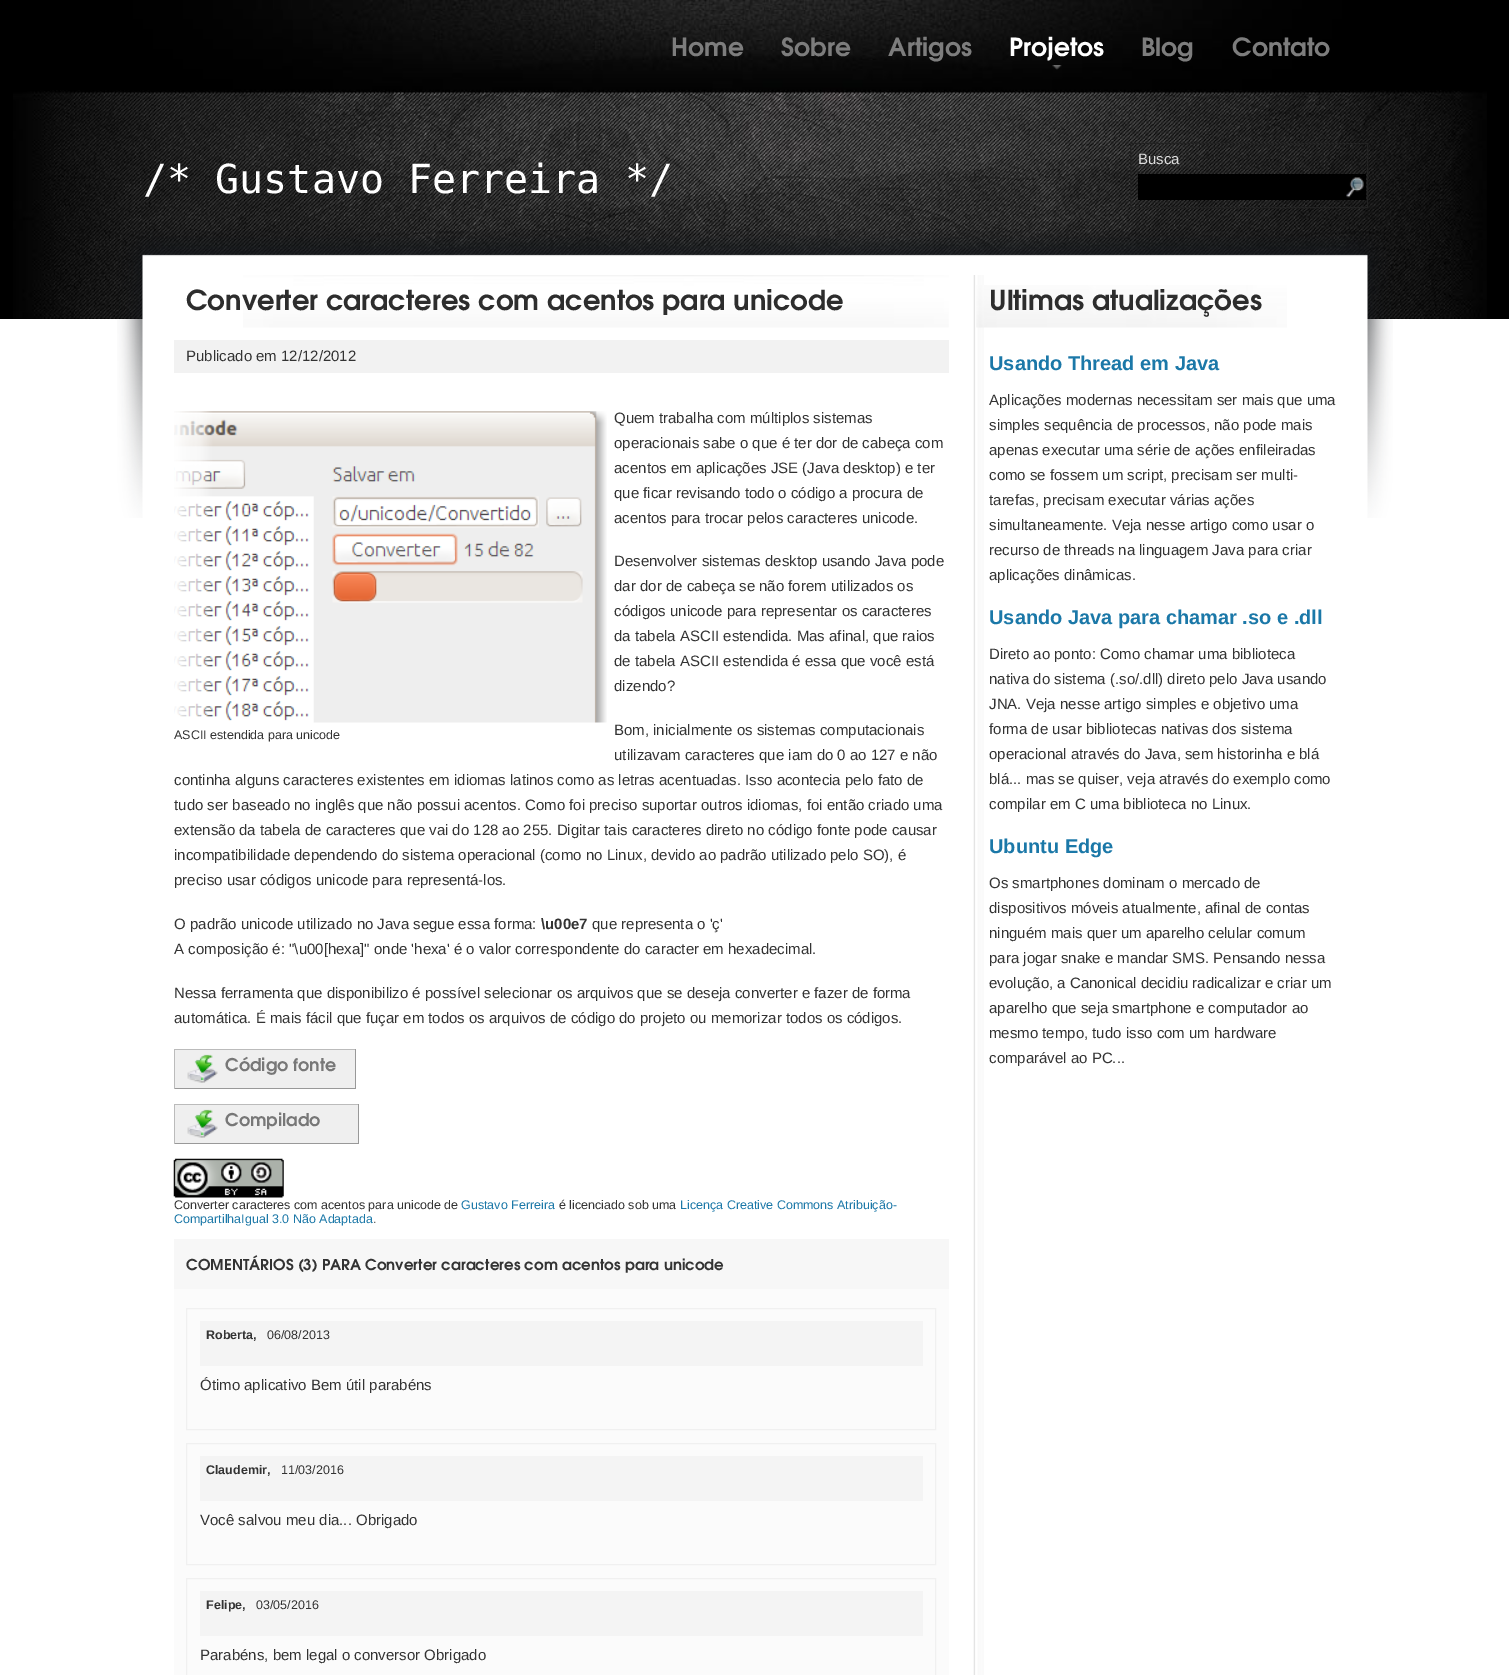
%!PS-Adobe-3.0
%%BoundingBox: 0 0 1509 1675
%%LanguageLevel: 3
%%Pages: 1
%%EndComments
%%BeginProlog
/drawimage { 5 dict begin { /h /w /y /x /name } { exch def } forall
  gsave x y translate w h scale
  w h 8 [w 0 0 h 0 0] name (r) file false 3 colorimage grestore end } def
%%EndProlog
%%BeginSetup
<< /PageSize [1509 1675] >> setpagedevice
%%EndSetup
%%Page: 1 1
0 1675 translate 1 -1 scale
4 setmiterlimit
1 setgray
0 0 1509 1675 rectfill
0 setgray
0 0 1509 319 rectfill
(images/1.raw) 13 0 1474 319 drawimage
(images/2.raw) 1052 65 10 5 drawimage
0.133 setgray
1130.5 143.5 237 64 rectstroke
0 setgray
1138 174 228 26 rectfill
(images/3.raw) 1346 177 18 21 drawimage
(images/4.raw) 117 230 1276 288 drawimage
(images/5.raw) 973 275 11 1400 drawimage
(images/6.raw) 243 275 706 53 drawimage
0.949 setgray
174 340 775 33 rectfill
(images/7.raw) 174 411 433 312 drawimage
0.937 setgray
175 1050 180 38 rectfill
(images/8.raw) 187 1054 31 29 drawimage
0.733 setgray
174 1049 182 1 rectfill
0.6 setgray
355 1049 1 40 rectfill
174 1088 182 1 rectfill
0.733 setgray
174 1049 1 40 rectfill
0.937 setgray
175 1105 183 38 rectfill
(images/8.raw) 187 1109 31 29 drawimage
0.733 setgray
174 1104 185 1 rectfill
0.6 setgray
358 1104 1 40 rectfill
174 1143 185 1 rectfill
0.733 setgray
174 1104 1 40 rectfill
(images/9.raw) 173 1158 111 40 drawimage
0.984 setgray
174 1289 775 386 rectfill
0.969 setgray
174 1239 775 50 rectfill
0.941 setgray
186.5 1308.5 749 121 rectstroke
0.957 setgray
200 1321 723 45 rectfill
0.941 setgray
186.5 1443.5 749 121 rectstroke
0.957 setgray
200 1456 723 45 rectfill
0.941 setgray
186.5 1578.5 749 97 rectstroke
0.957 setgray
200 1591 723 45 rectfill
(images/10.raw) 976 285 311 43 drawimage
/TeXGyreAdventor-Bold [25 0 0 -25 0 0] selectfont
0.49 setgray
671 56 moveto (Home) show
781 56 moveto (Sobre) show
888 56 moveto (Artigos) show
1 setgray
1009 56 moveto (Projetos) show
0.49 setgray
1141 56 moveto (Blog) show
1232 56 moveto (Contato) show
/LiberationSans-Regular [15 0 0 -15 0 0] selectfont
0.867 setgray
1138 164 moveto (Busca) show
/DejaVuSansMono-Regular [40 0 0 -40 0 0] selectfont
1 setgray
143 193 moveto (/* Gustavo Ferreira */) show
/TeXGyreAdventor-Bold [27.5 0 0 -27.5 0 0] selectfont
0.176 setgray
186 310 moveto (Converter caracteres com acentos para unicode) show
/LiberationSans-Regular [15 0 0 -15 0 0] selectfont
0.2 setgray
186 361 moveto (Publicado em 12/12/2012) show
614 423 moveto (Quem trabalha com múltiplos sistemas) show
614 448 moveto (operacionais sabe o que é ter dor de cabeça com) show
614 473 moveto (acentos em aplicações JSE \(Java desktop\) e ter) show
614 498 moveto (que ficar revisando todo o código a procura de) show
614 523 moveto (acentos para trocar pelos caracteres unicode.) show
614 566 moveto (Desenvolver sistemas desktop usando Java pode) show
614 591 moveto (dar dor de cabeça se não forem utilizados os) show
614 616 moveto (códigos unicode para representar os caracteres) show
614 641 moveto (da tabela ASCII estendida. Mas afinal, que raios) show
614 666 moveto (de tabela ASCII estendida é essa que você está) show
614 691 moveto (dizendo?) show
614 735 moveto (Bom, inicialmente os sistemas computacionais) show
614 760 moveto (utilizavam caracteres que iam do 0 ao 127 e não) show
174 785 moveto (continha alguns caracteres existentes em idiomas latinos como as letras acentuadas. Isso acontecia pelo fato de) show
174 810 moveto (tudo ser baseado no inglês que não possui acentos. Como foi preciso suportar outros idiomas, foi então criado uma) show
174 835 moveto (extensão da tabela de caracteres que vai do 128 ao 255. Digitar tais caracteres direto no código fonte pode causar) show
174 860 moveto (incompatibilidade dependendo do sistema operacional \(como no Linux, devido ao padrão utilizado pelo SO\), é) show
174 885 moveto (preciso usar códigos unicode para representá-los.) show
/LiberationSans-Regular [12.5 0 0 -12.5 0 0] selectfont
174 739 moveto (ASCII estendida para unicode) show
/LiberationSans-Regular [15 0 0 -15 0 0] selectfont
174 929 moveto (O padrão unicode utilizado no Java segue essa forma:) show
/LiberationSans-Bold [15 0 0 -15 0 0] selectfont
541 929 moveto (\\u00e7) show
/LiberationSans-Regular [15 0 0 -15 0 0] selectfont
592 929 moveto (que representa o 'ç') show
174 954 moveto (A composição é: "\\u00[hexa]" onde 'hexa' é o valor correspondente do caracter em hexadecimal.) show
174 998 moveto (Nessa ferramenta que disponibilizo é possível selecionar os arquivos que se deseja converter e fazer de forma) show
174 1023 moveto (automática. É mais fácil que fuçar em todos os arquivos de código do projeto ou memorizar todos os códigos.) show
/TeXGyreAdventor-Bold [17.5 0 0 -17.5 0 0] selectfont
0.467 setgray
225 1071 moveto (Código fonte) show
225 1126 moveto (Compilado) show
/LiberationSans-Regular [12.5 0 0 -12.5 0 0] selectfont
0.2 setgray
174 1209 moveto (Converter caracteres com acentos para unicode de) show
0.106 0.471 0.659 setrgbcolor
461 1209 moveto (Gustavo Ferreira) show
0.2 setgray
559 1209 moveto (é licenciado sob uma) show
0.106 0.471 0.659 setrgbcolor
680 1209 moveto (Licença Creative Commons Atribuição-) show
174 1223 moveto (CompartilhaIgual 3.0 Não Adaptada) show
0.2 setgray
373 1223 moveto (.) show
/TeXGyreAdventor-Bold [15 0 0 -15 0 0] selectfont
186 1270 moveto (COMENTÁRIOS \(3\) PARA Converter caracteres com acentos para unicode) show
/LiberationSans-Bold [12.5 0 0 -12.5 0 0] selectfont
206 1339 moveto (Roberta,) show
/LiberationSans-Regular [12.5 0 0 -12.5 0 0] selectfont
267 1339 moveto (06/08/2013) show
/LiberationSans-Regular [15 0 0 -15 0 0] selectfont
200 1390 moveto (Ótimo aplicativo Bem útil parabéns) show
/LiberationSans-Bold [12.5 0 0 -12.5 0 0] selectfont
206 1474 moveto (Claudemir,) show
/LiberationSans-Regular [12.5 0 0 -12.5 0 0] selectfont
281 1474 moveto (11/03/2016) show
/LiberationSans-Regular [15 0 0 -15 0 0] selectfont
200 1525 moveto (Você salvou meu dia... Obrigado) show
/LiberationSans-Bold [12.5 0 0 -12.5 0 0] selectfont
206 1609 moveto (Felipe,) show
/LiberationSans-Regular [12.5 0 0 -12.5 0 0] selectfont
256 1609 moveto (03/05/2016) show
/LiberationSans-Regular [15 0 0 -15 0 0] selectfont
200 1660 moveto (Parabéns, bem legal o conversor Obrigado) show
/TeXGyreAdventor-Bold [27.5 0 0 -27.5 0 0] selectfont
0.176 setgray
989 310 moveto (Ultimas atualizações) show
/LiberationSans-Bold [20 0 0 -20 0 0] selectfont
0.106 0.471 0.659 setrgbcolor
989 370 moveto (Usando Thread em Java) show
/LiberationSans-Regular [15 0 0 -15 0 0] selectfont
0.2 setgray
989 405 moveto (Aplicações modernas necessitam ser mais que uma) show
989 430 moveto (simples sequência de processos, não pode mais) show
989 455 moveto (apenas executar uma série de ações enfileiradas) show
989 480 moveto (como se fossem um script, precisam ser multi-) show
989 505 moveto (tarefas, precisam executar várias ações) show
989 530 moveto (simultaneamente. Veja nesse artigo como usar o) show
989 555 moveto (recurso de threads na linguagem Java para criar) show
989 580 moveto (aplicações dinâmicas.) show
/LiberationSans-Bold [20 0 0 -20 0 0] selectfont
0.106 0.471 0.659 setrgbcolor
989 624 moveto (Usando Java para chamar .so e .dll) show
/LiberationSans-Regular [15 0 0 -15 0 0] selectfont
0.2 setgray
989 659 moveto (Direto ao ponto: Como chamar uma biblioteca) show
989 684 moveto (nativa do sistema \(.so/.dll\) direto pelo Java usando) show
989 709 moveto (JNA. Veja nesse artigo simples e objetivo uma) show
989 734 moveto (forma de usar bibliotecas nativas dos sistema) show
989 759 moveto (operacional através do Java, sem historinha e blá) show
989 784 moveto (blá... mas se quiser, veja através do exemplo como) show
989 809 moveto (compilar em C uma biblioteca no Linux.) show
/LiberationSans-Bold [20 0 0 -20 0 0] selectfont
0.106 0.471 0.659 setrgbcolor
989 853 moveto (Ubuntu Edge) show
/LiberationSans-Regular [15 0 0 -15 0 0] selectfont
0.2 setgray
989 888 moveto (Os smartphones dominam o mercado de) show
989 913 moveto (dispositivos móveis atualmente, afinal de contas) show
989 938 moveto (ninguém mais quer um aparelho celular comum) show
989 963 moveto (para jogar snake e mandar SMS. Pensando nessa) show
989 988 moveto (evolução, a Canonical decidiu radicalizar e criar um) show
989 1013 moveto (aparelho que seja smartphone e computador ao) show
989 1038 moveto (mesmo tempo, tudo isso com um hardware) show
989 1063 moveto (comparável ao PC...) show
showpage
%%EOF
